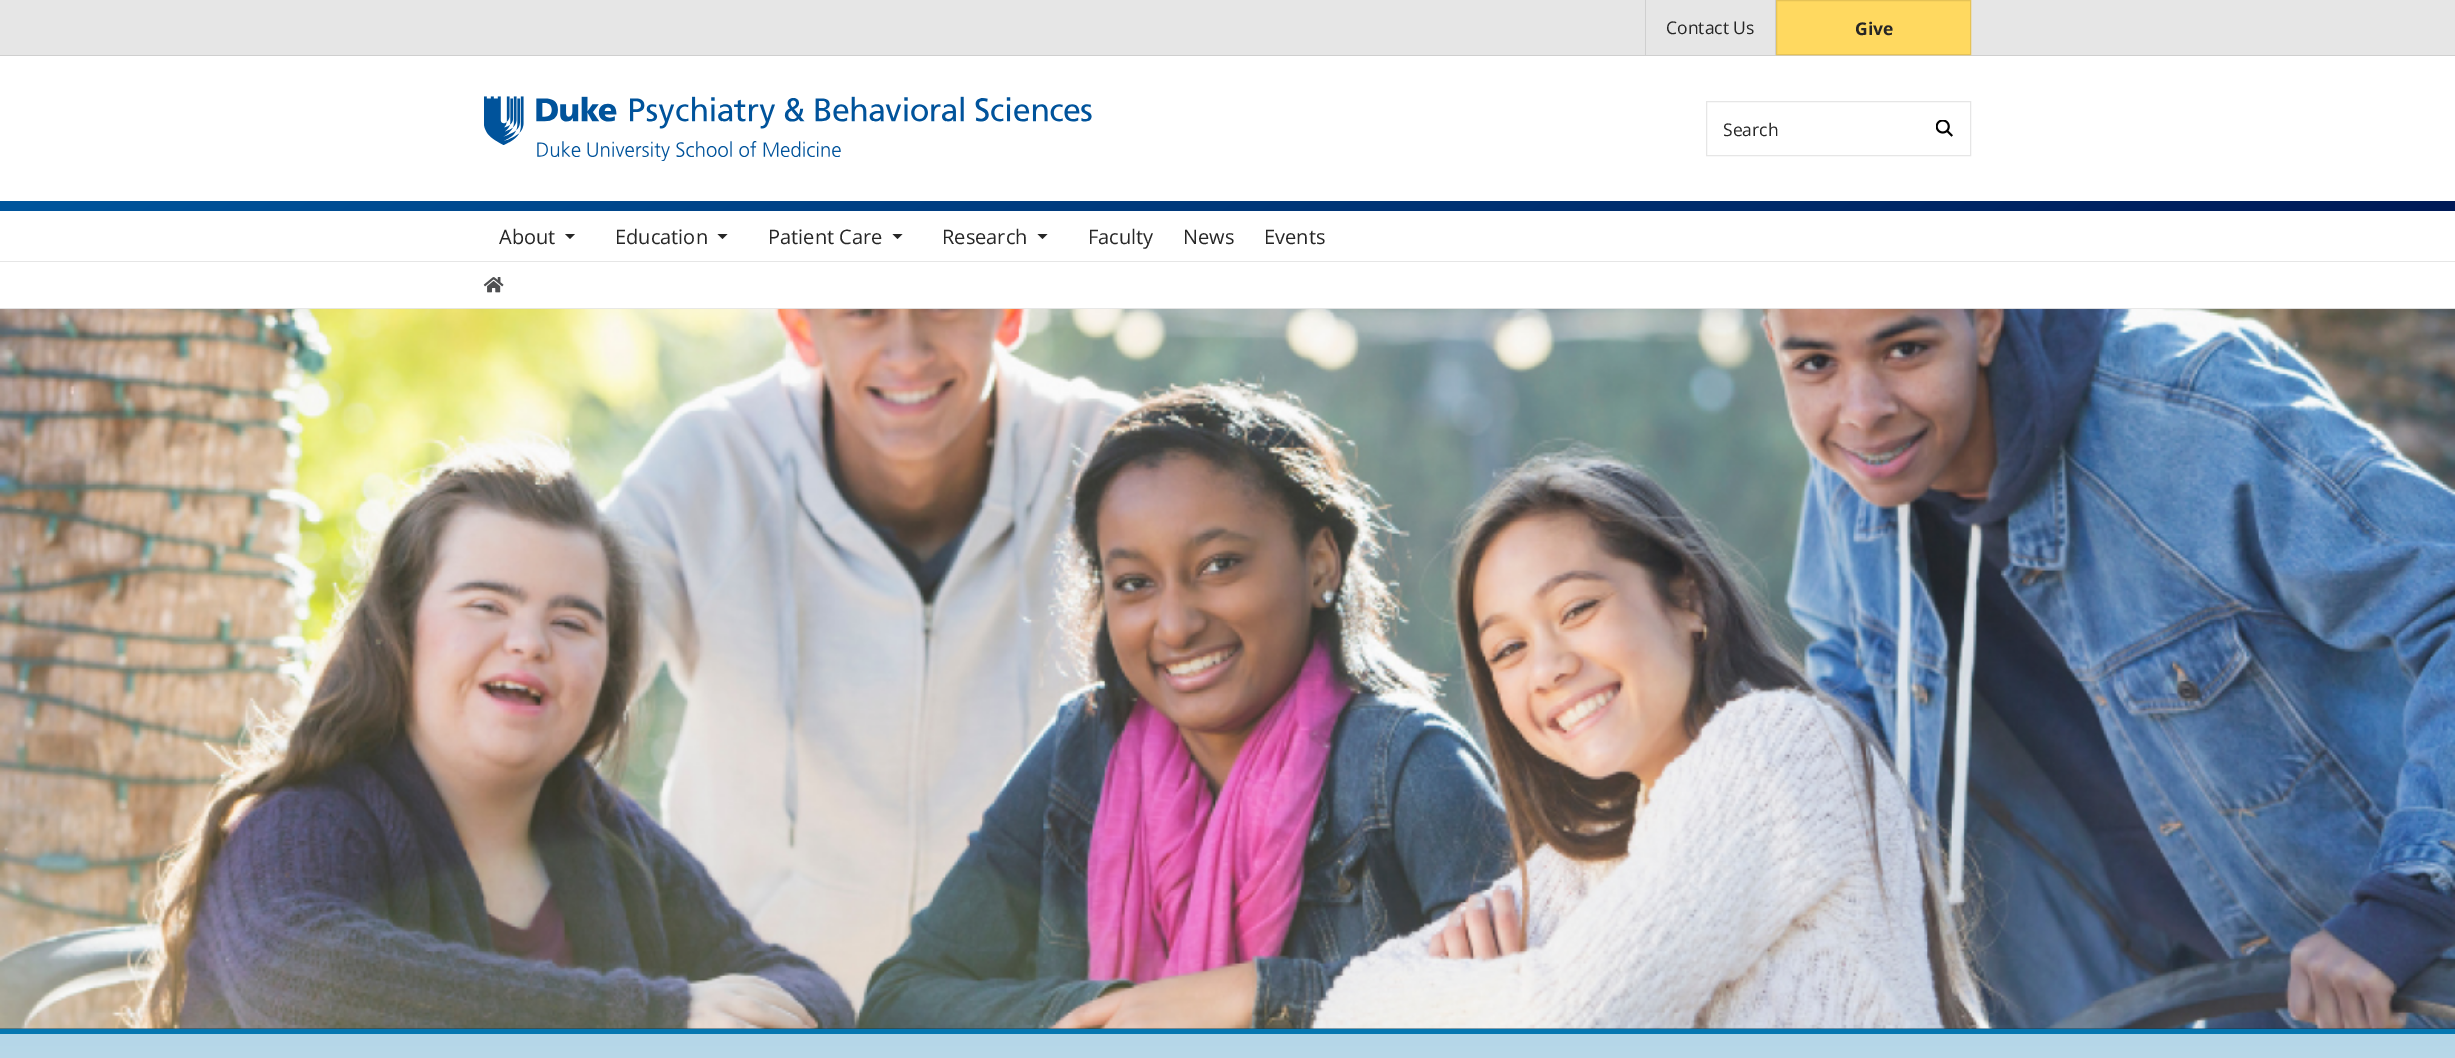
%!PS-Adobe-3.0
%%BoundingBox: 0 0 2455 1058
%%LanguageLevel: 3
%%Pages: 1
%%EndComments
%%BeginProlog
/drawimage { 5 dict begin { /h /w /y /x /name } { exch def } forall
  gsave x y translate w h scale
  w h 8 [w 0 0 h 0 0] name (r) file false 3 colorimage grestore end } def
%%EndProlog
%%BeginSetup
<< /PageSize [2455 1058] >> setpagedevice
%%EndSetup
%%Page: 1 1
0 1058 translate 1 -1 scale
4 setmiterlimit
1 setgray
0 0 2455 1058 rectfill
0.902 setgray
0 0 2455 55 rectfill
0.812 setgray
0 55 2455 1 rectfill
1645 0 1 55 rectfill
1775 0 1 55 rectfill
1 0.851 0.376 setrgbcolor
newpath 1776.5 0.5 moveto 1970.5 0.5 lineto 1970.5 54.5 lineto 1776.5 54.5 lineto closepath gsave fill grestore
0.902 0.765 0.337 setrgbcolor
stroke
(images/1.raw) 484 96 608 65 drawimage
0.902 setgray
1706.5 101.5 264 54 rectstroke
(images/2.raw) 1936 120 17 17 drawimage
gsave newpath 0 201 moveto 2455 201 lineto 2455 211 lineto 0 211 lineto closepath clip newpath
<< /ShadingType 2 /ColorSpace /DeviceRGB /Coords [781 -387 1674 799] /Extend [true true] /Function << /FunctionType 2 /Domain [0 1] /C0 [0 0.337 0.616] /C1 [0 0.102 0.341] /N 1 >> >> shfill grestore
0 261 2455 1 rectfill
0.149 setgray
newpath 565 234 moveto 575 234 lineto 570 239 lineto closepath fill
newpath 717.5 234 moveto 727.5 234 lineto 722.5 239 lineto closepath fill
newpath 892.5 234 moveto 902.5 234 lineto 897.5 239 lineto closepath fill
newpath 1037.5 234 moveto 1047.5 234 lineto 1042.5 239 lineto closepath fill
0.902 setgray
0 308 2455 1 rectfill
(images/3.raw) 483 277 21 16 drawimage
0.012 0.235 0.349 setrgbcolor
0 1028 2455 1 rectfill
(images/4.raw) 0 308 2455 721 drawimage
gsave newpath 0 1034 moveto 2455 1034 lineto 2455 1058 lineto 0 1058 lineto closepath clip newpath
<< /ShadingType 2 /ColorSpace /DeviceRGB /Coords [1228 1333 1228 1034] /Extend [true true] /Function << /FunctionType 2 /Domain [0 1] /C0 [0.902 0.945 0.969] /C1 [0.706 0.839 0.91] /N 1 >> >> shfill grestore
0.02 0.467 0.694 setrgbcolor
0 1029 2455 5 rectfill
/OpenSans-Regular [17.5 0 0 -17.5 0 0] selectfont
0.149 setgray
1666 34 moveto (Contact Us) show
/OpenSans-Bold [17.5 0 0 -17.5 0 0] selectfont
1855 35 moveto (Give) show
/OpenSans-Regular [17.5 0 0 -17.5 0 0] selectfont
1723 136 moveto (Search) show
/OpenSans-Regular [20 0 0 -20 0 0] selectfont
499 244 moveto (About) show
615 244 moveto (Education) show
768 244 moveto (Patient Care) show
942 244 moveto (Research) show
1088 244 moveto (Faculty) show
1183 244 moveto (News) show
1264 244 moveto (Events) show
showpage
%%EOF
